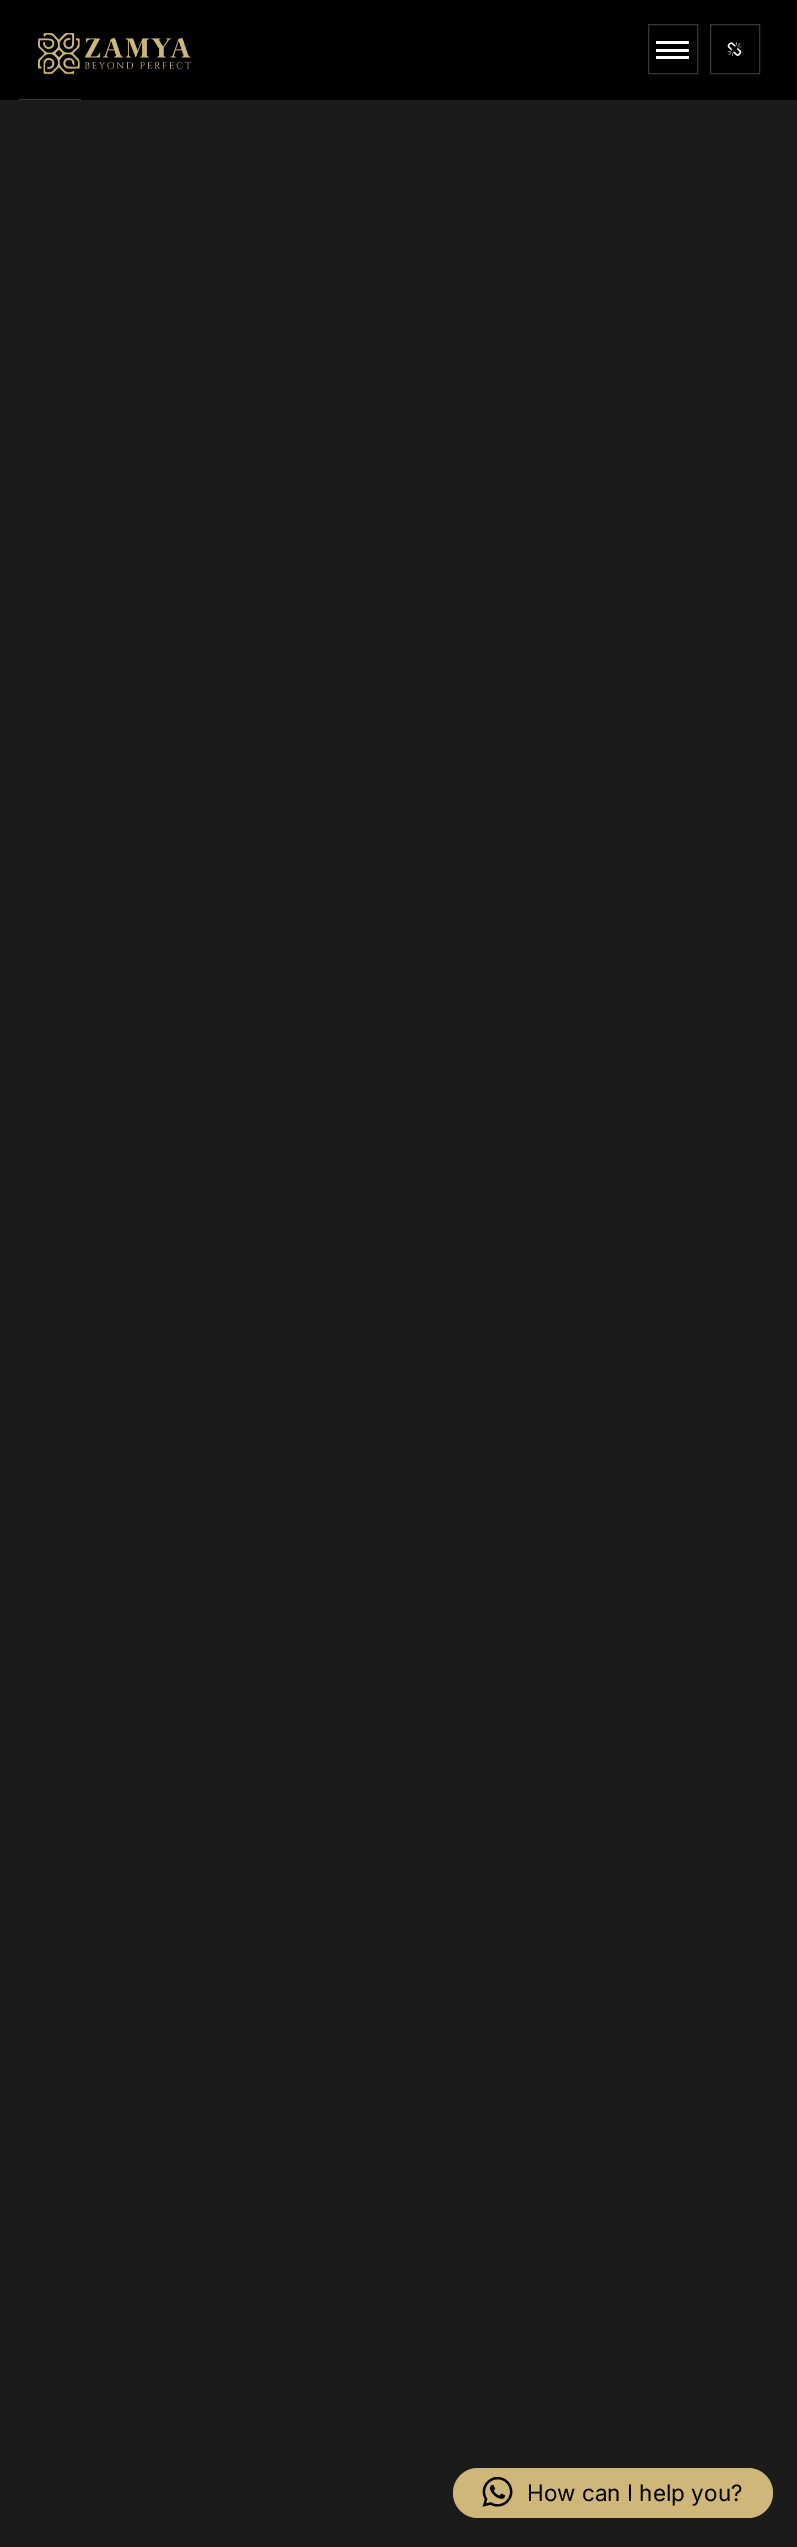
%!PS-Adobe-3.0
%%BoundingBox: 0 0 797 2547
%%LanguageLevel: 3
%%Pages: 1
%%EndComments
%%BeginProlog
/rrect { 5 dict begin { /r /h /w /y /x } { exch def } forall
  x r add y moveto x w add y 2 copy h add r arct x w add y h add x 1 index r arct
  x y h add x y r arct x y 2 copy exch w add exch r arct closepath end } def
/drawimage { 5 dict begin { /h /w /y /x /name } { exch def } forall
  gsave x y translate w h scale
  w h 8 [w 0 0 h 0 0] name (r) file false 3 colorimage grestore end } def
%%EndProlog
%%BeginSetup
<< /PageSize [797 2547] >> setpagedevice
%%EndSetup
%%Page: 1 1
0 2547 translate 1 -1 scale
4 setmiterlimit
0.106 setgray
0 0 797 2547 rectfill
0 setgray
0 0 797 100 rectfill
(images/1.raw) 38 32 153 43 drawimage
0.212 setgray
648.5 24.5 49 49 rectstroke
1 setgray
656 41 33 3 rectfill
656 49 33 3 rectfill
656 56 33 3 rectfill
0.212 setgray
710.5 24.5 49 49 rectstroke
(images/2.raw) 727 42 15 14 drawimage
19 99 62 1 rectfill
0.808 0.718 0.475 setrgbcolor
453 2468 320 50 25 rrect fill
(images/3.raw) 482 2476 31 31 drawimage
/Inter-Regular [22.5 0 0 -22.5 0 0] selectfont
0 setgray
527 2501 moveto (How can I help you?) show
showpage
%%EOF
